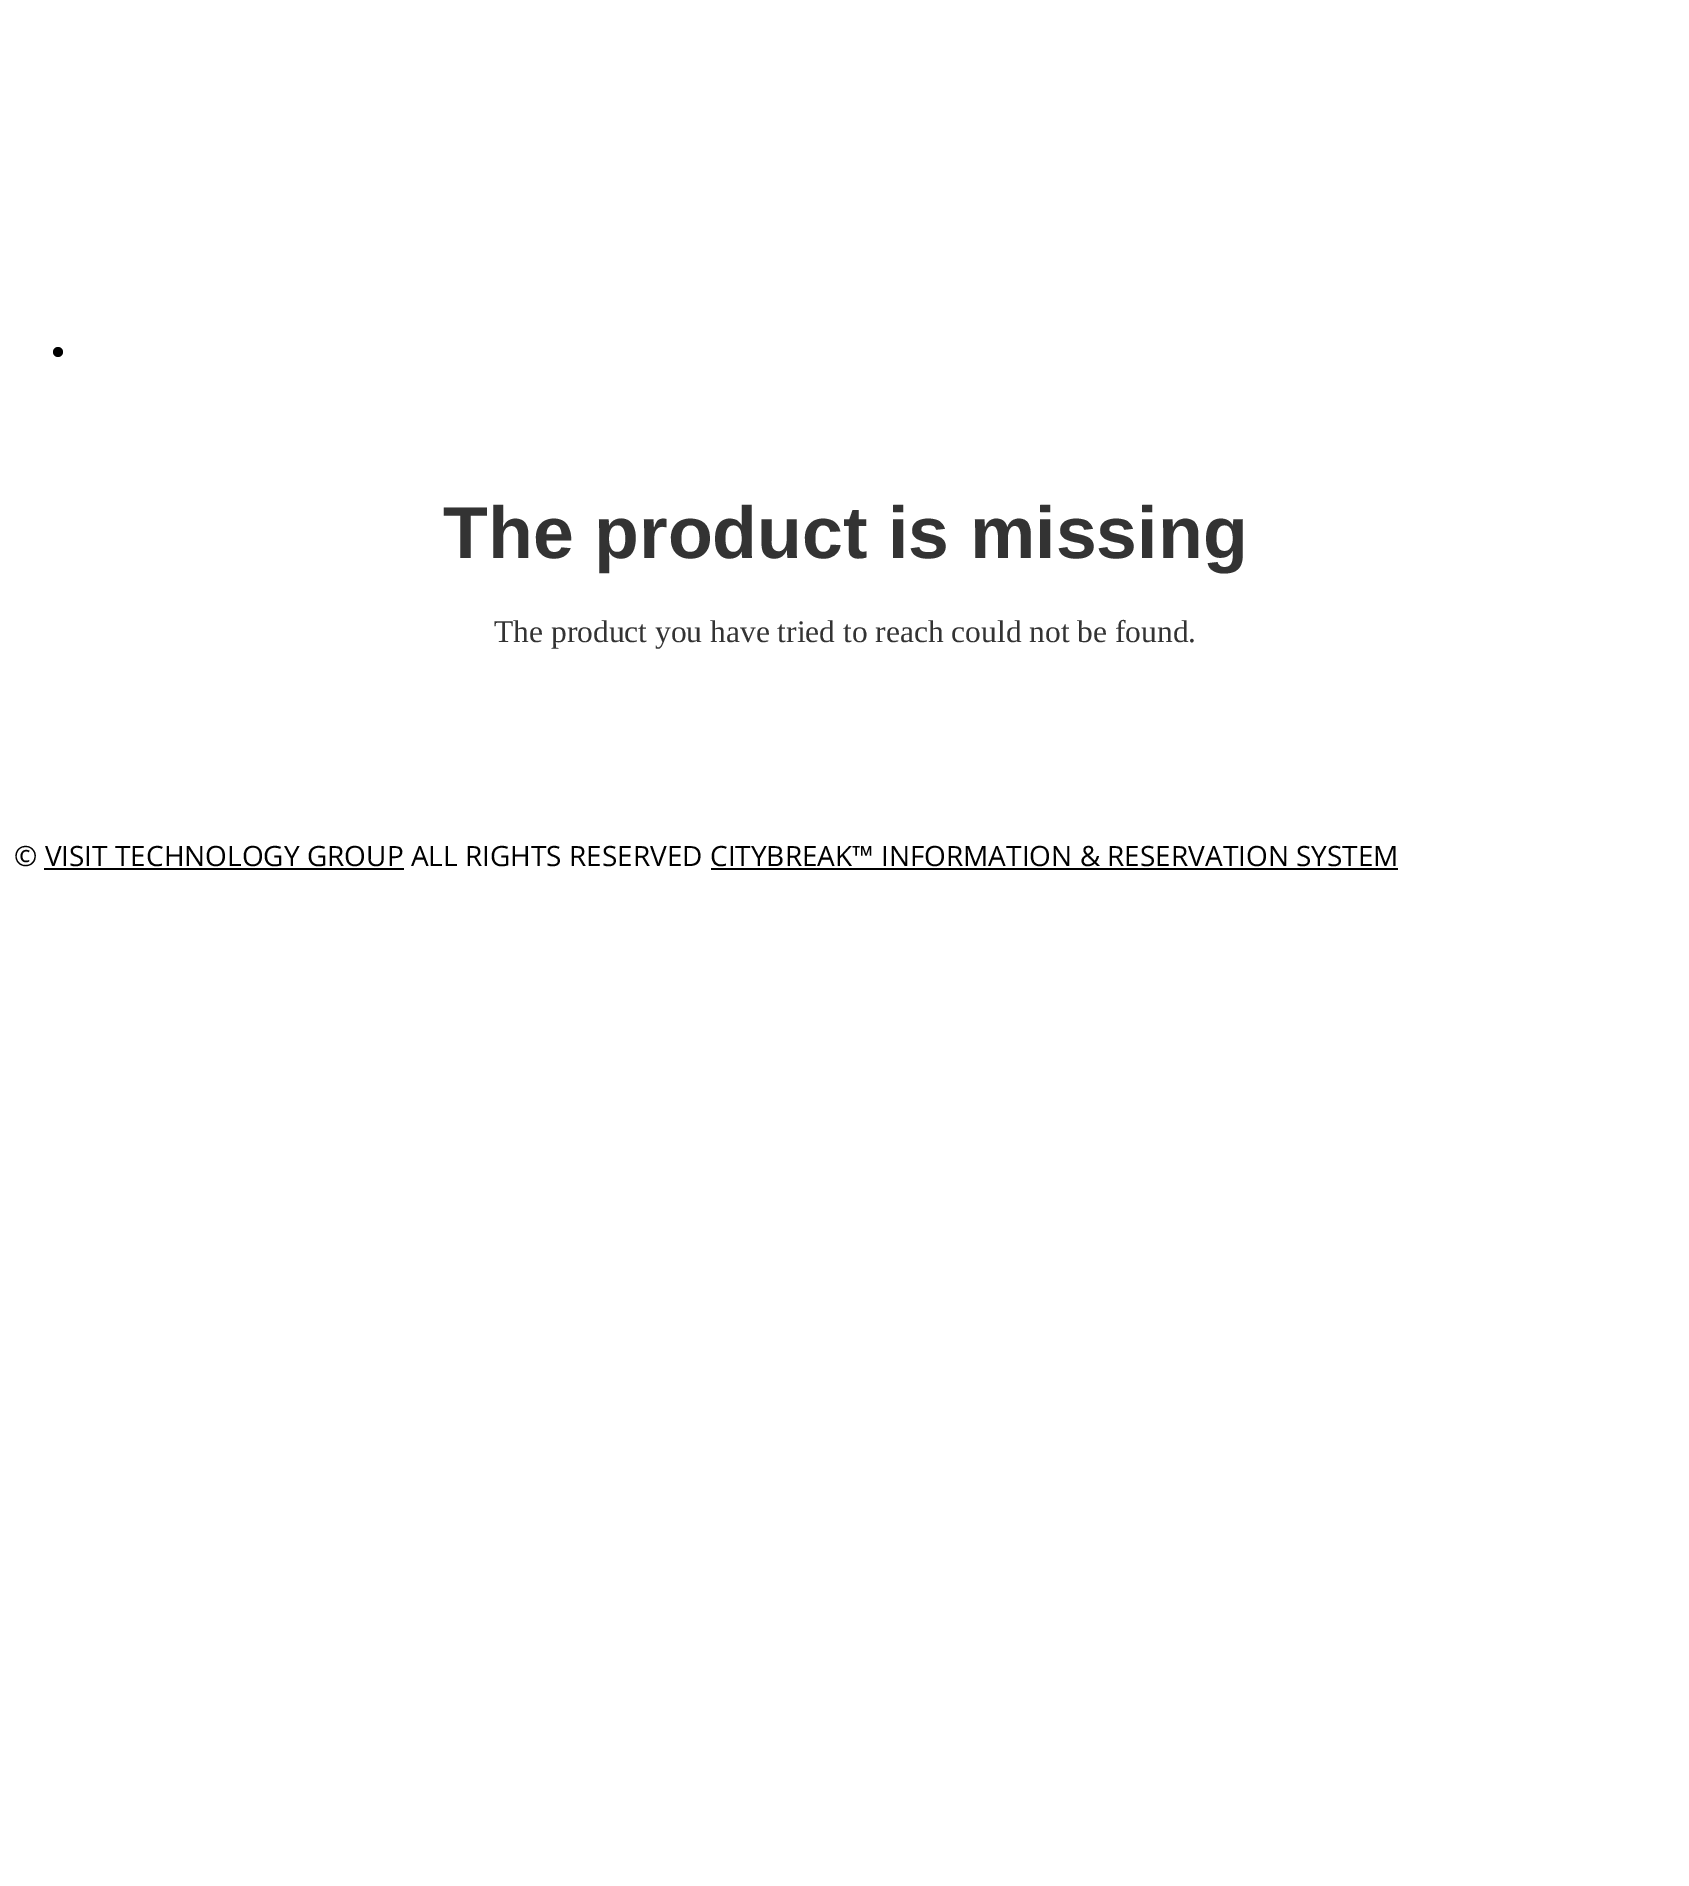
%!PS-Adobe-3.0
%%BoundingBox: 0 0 1689 1886
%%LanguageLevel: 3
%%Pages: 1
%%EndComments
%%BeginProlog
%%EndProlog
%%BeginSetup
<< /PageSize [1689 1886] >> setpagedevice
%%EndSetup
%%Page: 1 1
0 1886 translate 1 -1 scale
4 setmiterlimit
1 setgray
0 0 1689 1886 rectfill
0 setgray
newpath 58 352 5 0 360 arc closepath fill
44 868 360 2 rectfill
711 868 687 2 rectfill
/LiberationSans-Bold [73.5 0 0 -73.5 0 0] selectfont
0.2 setgray
443 558 moveto (The product is missing) show
/LiberationSerif-Regular [31.5 0 0 -31.5 0 0] selectfont
494 642 moveto (The product you have tried to reach could not be found.) show
/OpenSans-Regular [28 0 0 -28 0 0] selectfont
0 setgray
14 866 moveto (© VISIT TECHNOLOGY GROUP ALL RIGHTS RESERVED CITYBREAK™ INFORMATION & RESERVATION SYSTEM) show
showpage
%%EOF
